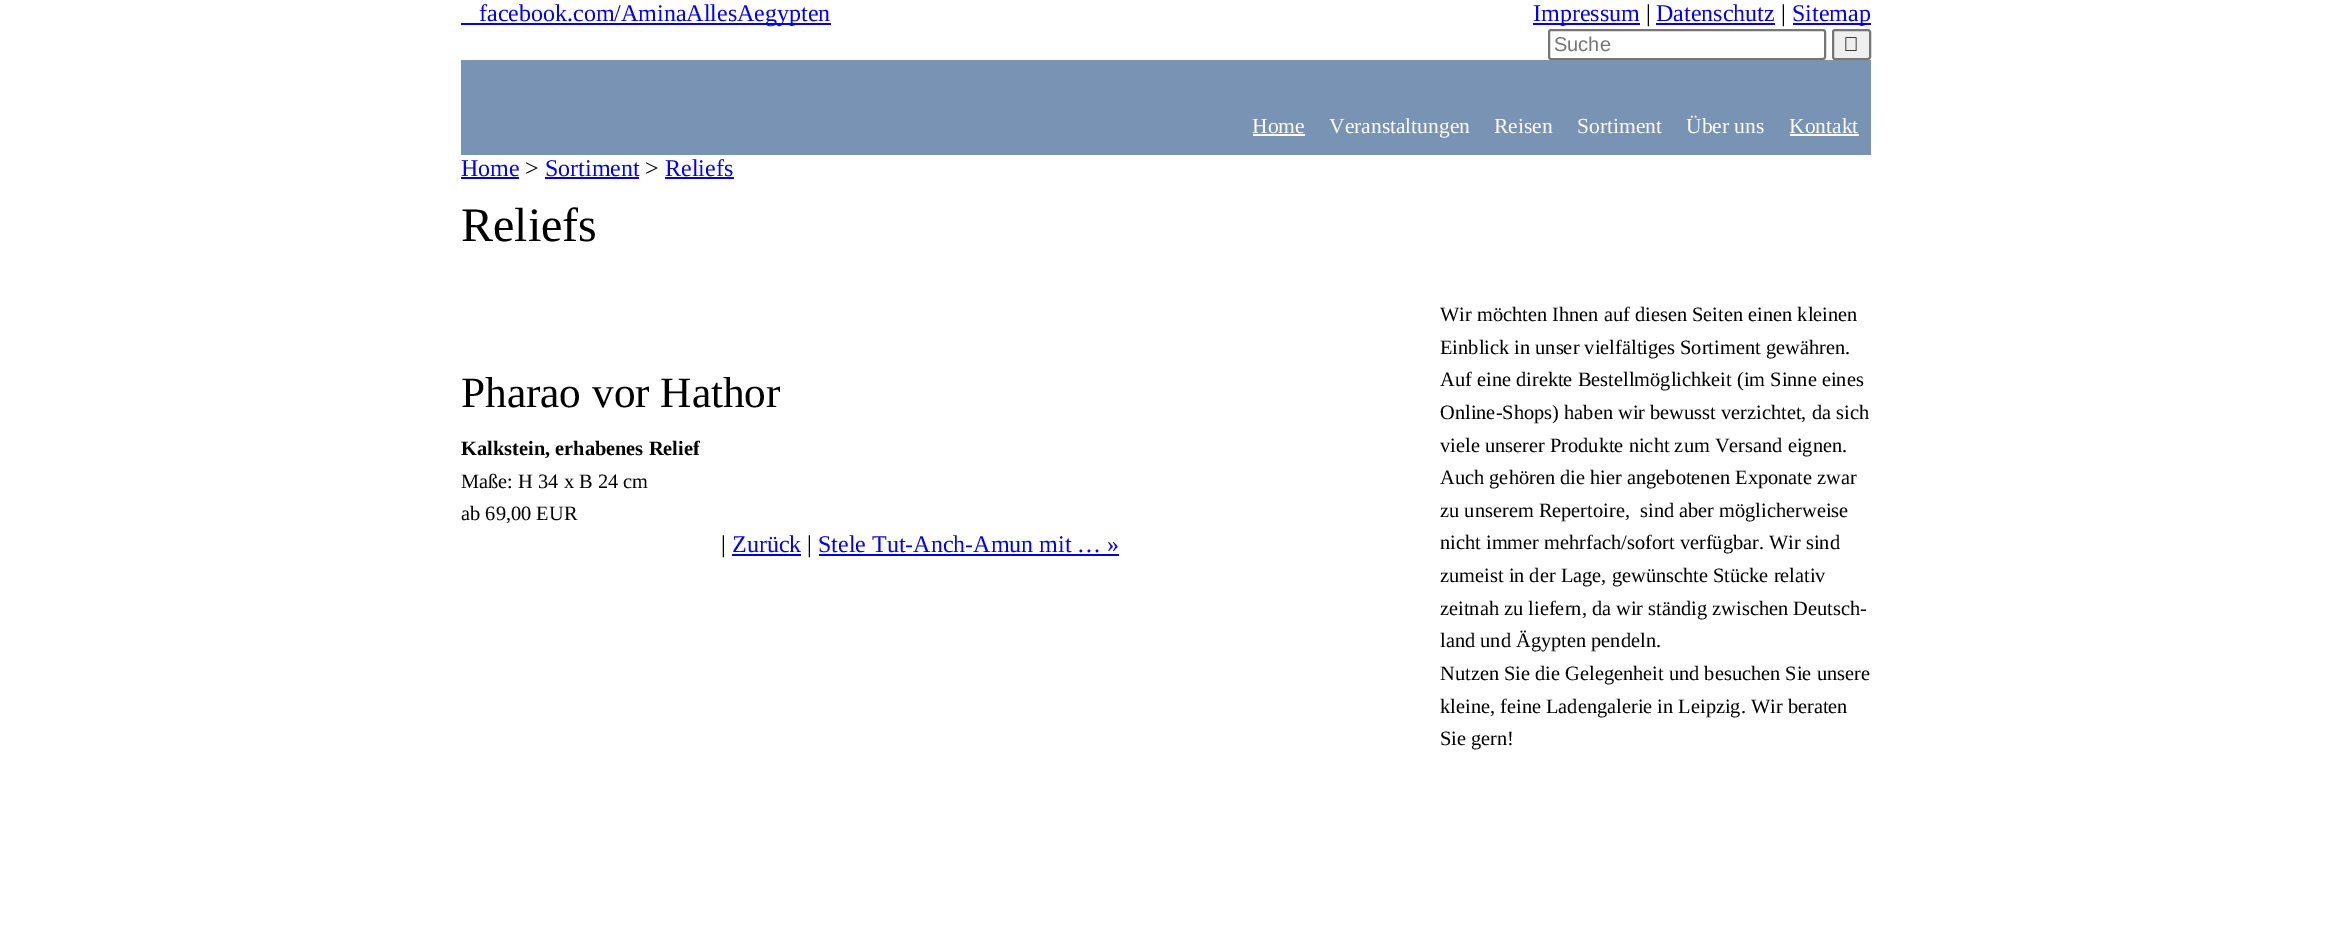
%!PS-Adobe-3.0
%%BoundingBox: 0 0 2331 927
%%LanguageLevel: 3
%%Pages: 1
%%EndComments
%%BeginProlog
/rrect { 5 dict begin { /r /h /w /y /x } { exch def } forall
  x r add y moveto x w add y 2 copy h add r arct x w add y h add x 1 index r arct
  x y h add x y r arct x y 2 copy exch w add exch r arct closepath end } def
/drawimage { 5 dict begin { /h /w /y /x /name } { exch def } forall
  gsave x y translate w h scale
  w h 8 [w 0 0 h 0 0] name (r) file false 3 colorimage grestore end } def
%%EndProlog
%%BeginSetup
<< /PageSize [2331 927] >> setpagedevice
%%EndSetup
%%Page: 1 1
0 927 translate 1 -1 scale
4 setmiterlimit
1 setgray
0 0 2331 927 rectfill
0 0 0.933 setrgbcolor
461 23 370 2 rectfill
1533 23 107 2 rectfill
1656 23 119 2 rectfill
1793 23 78 2 rectfill
0.463 setgray
2 setlinewidth
1549 30 276 29 2 rrect stroke
0.937 setgray
1833 30 37 29 2 rrect gsave fill grestore
0.463 setgray
stroke
(images/1.raw) 1845 37 12 14 drawimage
0.475 0.576 0.706 setrgbcolor
461 60 1410 95 rectfill
1 setgray
1253 134 52 2 rectfill
1790 134 69 2 rectfill
0 0 0.933 setrgbcolor
461 177 58 2 rectfill
545 177 94 2 rectfill
665 177 69 2 rectfill
732 554 69 2 rectfill
819 554 300 2 rectfill
/LiberationSerif-Regular [24 0 0 -24 0 0] selectfont
479 21 moveto (facebook.com/AminaAllesAegypten) show
1533 21 moveto (Impressum) show
0 setgray
1646 21 moveto (|) show
0 0 0.933 setrgbcolor
1656 21 moveto (Datenschutz) show
0 setgray
1781 21 moveto (|) show
0 0 0.933 setrgbcolor
1792 21 moveto (Sitemap) show
/LiberationSans-Regular [20 0 0 -20 0 0] selectfont
0.459 setgray
1554 51 moveto (Suche) show
/LiberationSerif-Regular [21.5 0 0 -21.5 0 0] selectfont
1 setgray
1252 133 moveto (Home) show
1329 133 moveto (Veranstaltungen) show
1494 133 moveto (Reisen) show
1577 133 moveto (Sortiment) show
1686 133 moveto (Über uns) show
1789 133 moveto (Kontakt) show
/LiberationSerif-Regular [24 0 0 -24 0 0] selectfont
0 0 0.933 setrgbcolor
461 176 moveto (Home) show
0 setgray
525 176 moveto (>) show
0 0 0.933 setrgbcolor
545 176 moveto (Sortiment) show
0 setgray
645 176 moveto (>) show
0 0 0.933 setrgbcolor
665 176 moveto (Reliefs) show
/LiberationSerif-Regular [48 0 0 -48 0 0] selectfont
0 setgray
461 241 moveto (Reliefs) show
/LiberationSerif-Regular [43.25 0 0 -43.25 0 0] selectfont
461 407 moveto (Pharao vor Hathor) show
/LiberationSerif-Bold [20.4 0 0 -20.4 0 0] selectfont
461 455 moveto (Kalkstein, erhabenes Relief) show
/LiberationSerif-Regular [20.4 0 0 -20.4 0 0] selectfont
461 488 moveto (Maße: H 34 x B 24 cm) show
461 520 moveto (ab 69,00 EUR) show
/LiberationSerif-Regular [24 0 0 -24 0 0] selectfont
721 552 moveto (|) show
0 0 0.933 setrgbcolor
732 552 moveto (Zurück) show
0 setgray
807 552 moveto (|) show
0 0 0.933 setrgbcolor
818 552 moveto (Stele Tut-Anch-Amun mit … ») show
/LiberationSerif-Regular [20.4 0 0 -20.4 0 0] selectfont
0 setgray
1440 321 moveto (Wir möchten Ihnen auf diesen Seiten einen kleinen) show
1440 354 moveto (Einblick in unser vielfältiges Sortiment gewähren.) show
1440 386 moveto (Auf eine direkte Bestellmöglichkeit \(im Sinne eines) show
1440 419 moveto (Online-Shops\) haben wir bewusst verzichtet, da sich) show
1440 452 moveto (viele unserer Produkte nicht zum Versand eignen.) show
1440 484 moveto (Auch gehören die hier angebotenen Exponate zwar) show
1440 517 moveto (zu unserem Repertoire,  sind aber möglicherweise) show
1440 549 moveto (nicht immer mehrfach/sofort verfügbar. Wir sind) show
1440 582 moveto (zumeist in der Lage, gewünschte Stücke relativ) show
1440 615 moveto (zeitnah zu liefern, da wir ständig zwischen Deutsch-) show
1440 647 moveto (land und Ägypten pendeln.) show
1440 680 moveto (Nutzen Sie die Gelegenheit und besuchen Sie unsere) show
1440 713 moveto (kleine, feine Ladengalerie in Leipzig. Wir beraten) show
1440 745 moveto (Sie gern!) show
showpage
%%EOF
